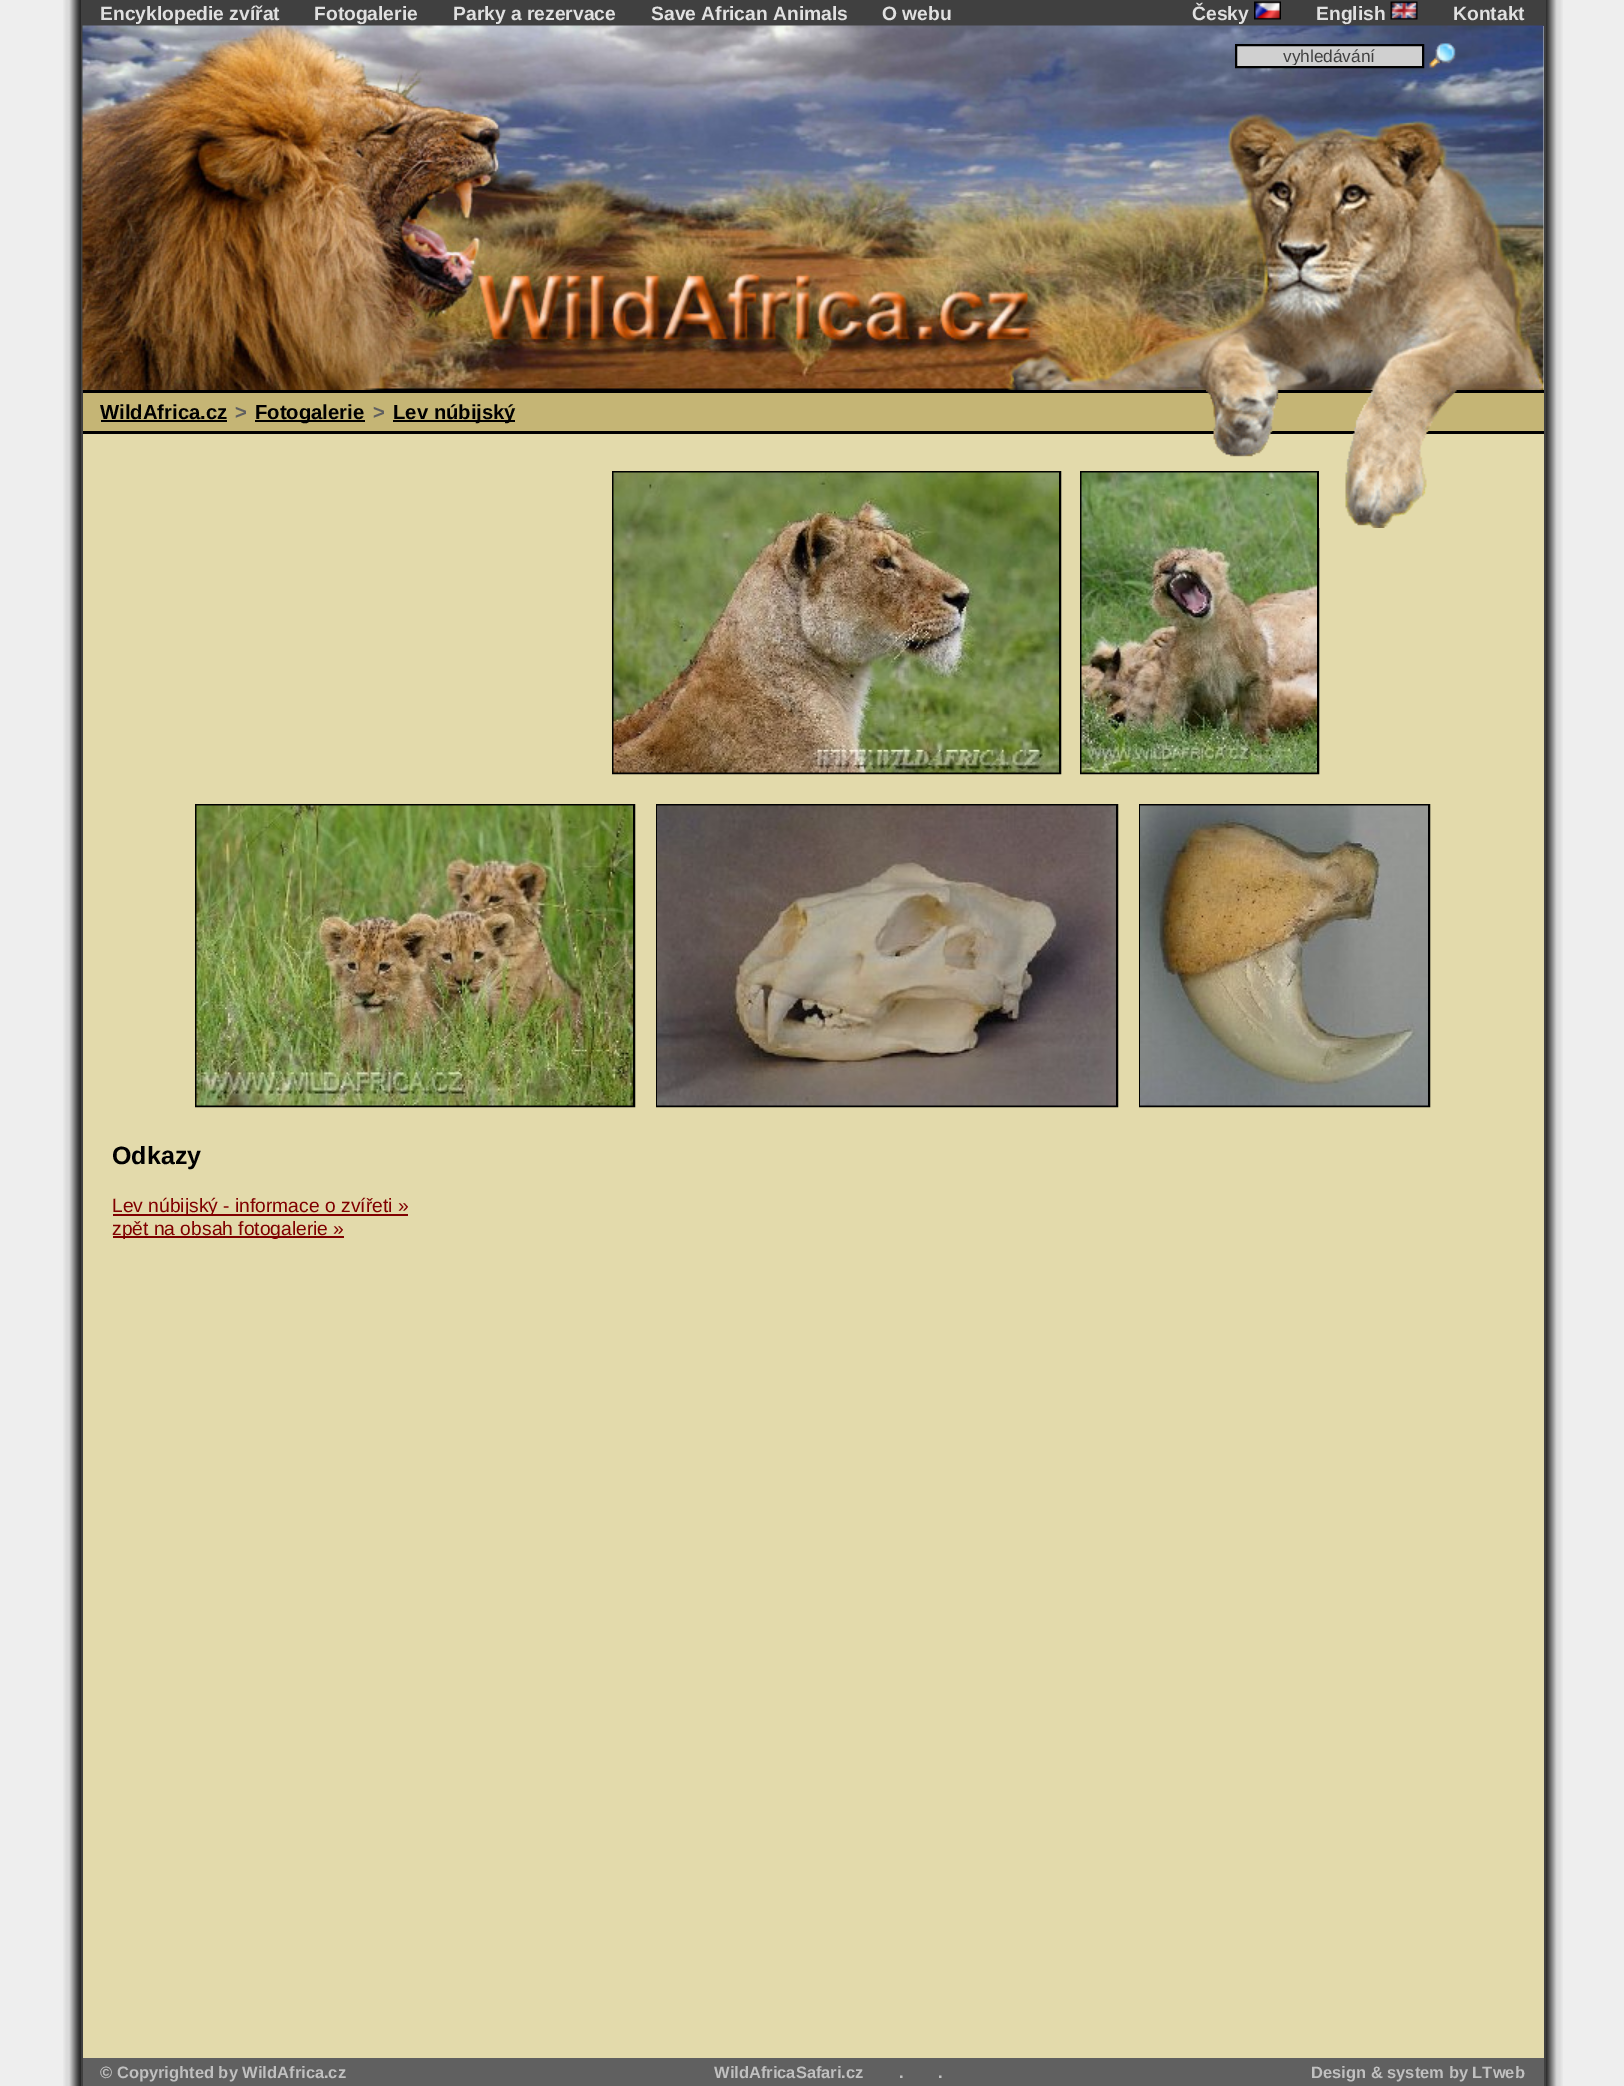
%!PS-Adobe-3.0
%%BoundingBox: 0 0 1624 2086
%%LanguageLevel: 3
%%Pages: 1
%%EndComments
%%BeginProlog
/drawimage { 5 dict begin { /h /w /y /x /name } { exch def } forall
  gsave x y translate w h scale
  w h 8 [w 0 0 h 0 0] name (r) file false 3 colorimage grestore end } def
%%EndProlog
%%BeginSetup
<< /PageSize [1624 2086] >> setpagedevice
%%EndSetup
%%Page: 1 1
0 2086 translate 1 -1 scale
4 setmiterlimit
0.933 setgray
0 0 1624 2086 rectfill
(images/1.raw) 63 0 1500 2086 drawimage
0.89 0.855 0.671 setrgbcolor
83 434 1461 1624 rectfill
0.251 setgray
1544 0 2 2086 rectfill
81 0 2 2086 rectfill
83 0 1461 26 rectfill
(images/2.raw) 1254 1 27 19 drawimage
(images/3.raw) 1390 1 28 19 drawimage
0.816 setgray
1543 26 1 364 rectfill
(images/4.raw) 82 25 1462 365 drawimage
newpath 1236 45 moveto 1423 45 lineto 1423 67 lineto 1236 67 lineto closepath gsave fill grestore
0 setgray
2 setlinewidth
stroke
(images/5.raw) 1429 43 27 25 drawimage
0.773 0.71 0.459 setrgbcolor
83 393 1461 38 rectfill
0 setgray
83 390 1461 3 rectfill
83 431 1461 3 rectfill
101 420 126 2 rectfill
255 420 110 2 rectfill
393 420 122 2 rectfill
1081 472 237 301 rectstroke
(images/8.raw) 1081 472 236 301 drawimage
(images/6.raw) 1206 390 251 138 drawimage
613 472 447 301 rectstroke
(images/7.raw) 613 472 446 301 drawimage
196 805 438 301 rectstroke
657 805 460 301 rectstroke
1140 805 289 301 rectstroke
(images/9.raw) 196 805 437 301 drawimage
(images/10.raw) 657 805 459 301 drawimage
(images/11.raw) 1140 805 288 301 drawimage
0.502 0 0 setrgbcolor
113 1214 295 2 rectfill
113 1236 231 2 rectfill
0.376 setgray
83 2058 1461 28 rectfill
/LiberationSans-Bold [19.25 0 0 -19.25 0 0] selectfont
0.878 setgray
100 20 moveto (Encyklopedie zvířat) show
314 20 moveto (Fotogalerie) show
453 20 moveto (Parky a rezervace) show
651 20 moveto (Save African Animals) show
882 20 moveto (O webu) show
1192 20 moveto (Česky) show
1316 20 moveto (English) show
1453 20 moveto (Kontakt) show
gsave
1239 47 180 18 rectclip
/LiberationSans-Regular [17.25 0 0 -17.25 0 0] selectfont
0.251 setgray
1283 62 moveto (vyhledávání) show
grestore
/LiberationSans-Bold [20.25 0 0 -20.25 0 0] selectfont
0 setgray
100 419 moveto (WildAfrica.cz) show
0.376 setgray
235 419 moveto (>) show
0 setgray
255 419 moveto (Fotogalerie) show
0.376 setgray
373 419 moveto (>) show
0 setgray
393 419 moveto (Lev núbijský) show
/LiberationSans-Bold [25 0 0 -25 0 0] selectfont
112 1164 moveto (Odkazy) show
/LiberationSans-Regular [19.25 0 0 -19.25 0 0] selectfont
0.502 0 0 setrgbcolor
112 1212 moveto (Lev núbijský - informace o zvířeti ») show
112 1235 moveto (zpět na obsah fotogalerie ») show
/LiberationSans-Bold [16.5 0 0 -16.5 0 0] selectfont
0.753 setgray
100 2078 moveto (© Copyrighted by WildAfrica.cz) show
714 2078 moveto (WildAfricaSafari.cz) show
899 2078 moveto (.) show
938 2078 moveto (.) show
1311 2078 moveto (Design & system by LTweb) show
showpage
%%EOF
